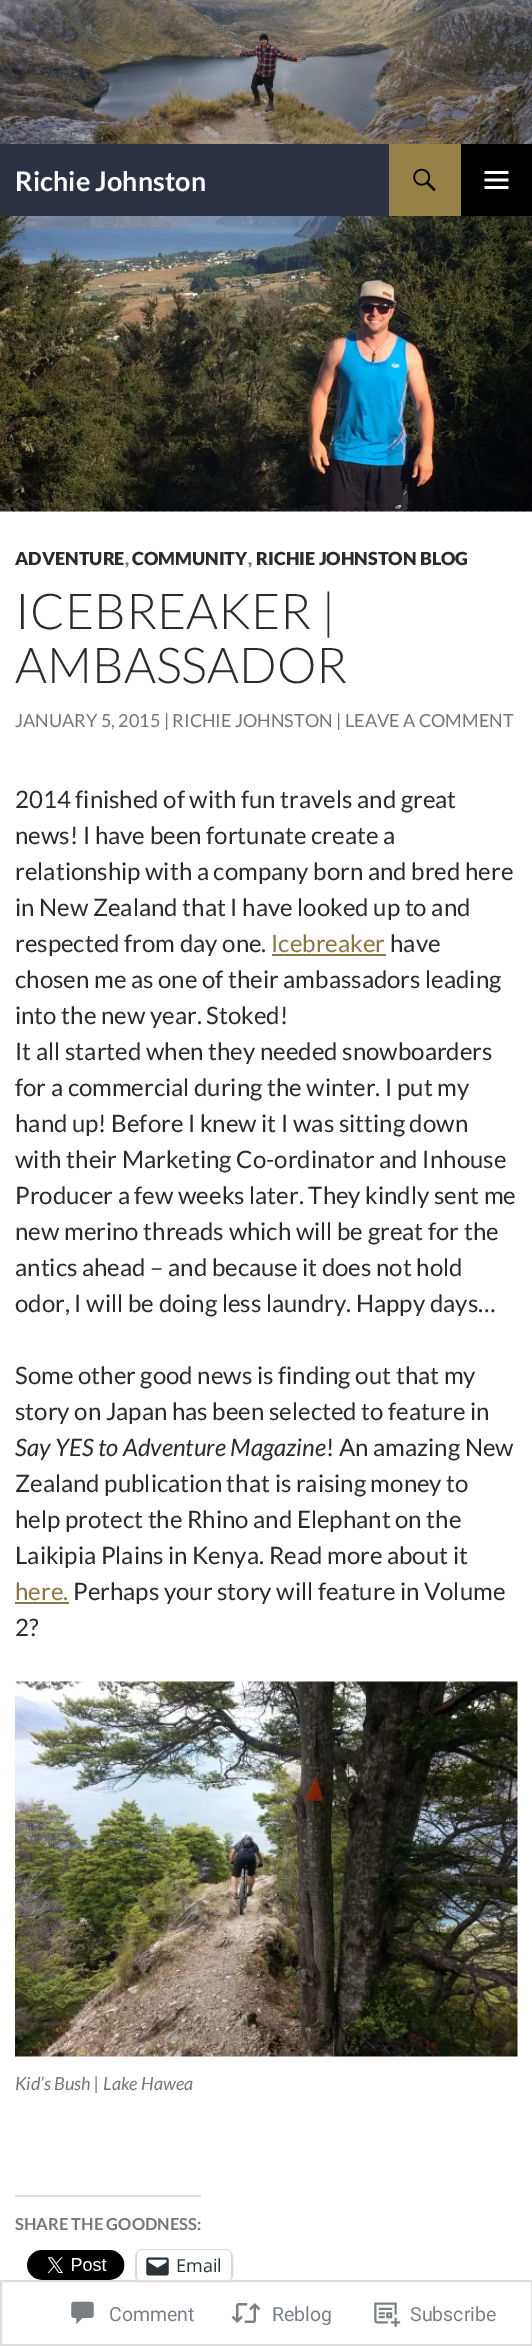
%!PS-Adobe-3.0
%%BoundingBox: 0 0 532 2346
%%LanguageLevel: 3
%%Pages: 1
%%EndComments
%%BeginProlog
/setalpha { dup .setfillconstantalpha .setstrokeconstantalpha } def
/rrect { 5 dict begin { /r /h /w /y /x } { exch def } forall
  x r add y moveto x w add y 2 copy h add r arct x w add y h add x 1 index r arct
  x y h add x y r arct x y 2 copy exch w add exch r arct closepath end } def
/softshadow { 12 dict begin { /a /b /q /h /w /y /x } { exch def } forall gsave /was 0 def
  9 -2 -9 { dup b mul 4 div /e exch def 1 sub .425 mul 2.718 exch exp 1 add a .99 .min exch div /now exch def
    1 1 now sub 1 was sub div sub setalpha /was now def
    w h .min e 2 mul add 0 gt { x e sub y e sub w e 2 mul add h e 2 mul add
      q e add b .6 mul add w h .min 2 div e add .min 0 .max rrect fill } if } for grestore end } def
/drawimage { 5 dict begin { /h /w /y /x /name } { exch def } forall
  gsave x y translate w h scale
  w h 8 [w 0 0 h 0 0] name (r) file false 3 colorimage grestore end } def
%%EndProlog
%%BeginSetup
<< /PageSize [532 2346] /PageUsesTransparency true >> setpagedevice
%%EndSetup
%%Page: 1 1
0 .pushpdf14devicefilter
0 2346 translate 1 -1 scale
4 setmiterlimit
1 setgray
0 0 532 2346 rectfill
(images/1.raw) 0 0 532 144 drawimage
0.173 0.196 0.263 setrgbcolor
0 144 389 72 rectfill
0.596 0.506 0.275 setrgbcolor
389 144 72 72 rectfill
(images/2.raw) 413 168 23 24 drawimage
0 setgray
461 144 71 72 rectfill
(images/3.raw) 484 171 25 18 drawimage
0.698 setgray
0 511 532 1 rectfill
(images/4.raw) 0 511 532 1 drawimage
(images/5.raw) 0 216 532 296 drawimage
0.549 0.463 0.247 setrgbcolor
272 954 114 2 rectfill
15 1602 54 2 rectfill
(images/6.raw) 15 1681 503 376 drawimage
0.863 0.863 0.871 setrgbcolor
15 2195 186 2 rectfill
(images/7.raw) 27 2250 98 30 drawimage
0.878 setgray
2 setlinewidth
136 2250 96 32 7 rrect stroke
0 setgray
137 2252 94 31 6 1.5 0.12 softshadow
1 setgray
137 2250 94 32 6 rrect fill
(images/8.raw) 146 2257 23 19 drawimage
0.98 setalpha
137 2282 94 3 rectfill
1 setalpha
0.867 0.867 0.875 setrgbcolor
1 2281 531 64 rectstroke
(images/9.raw) 71 2301 23 24 drawimage
(images/10.raw) 231 2303 30 20 drawimage
(images/11.raw) 374 2302 27 25 drawimage
/Lato-Bold [27 0 0 -27 0 0] selectfont
1 setgray
15 191 moveto (Richie Johnston) show
/Lato-Black [18 0 0 -18 0 0] selectfont
0.169 setgray
15 565 moveto (ADVENTURE) show
0.463 setgray
125 565 moveto (,) show
0.169 setgray
132 565 moveto (COMMUNITY) show
0.463 setgray
248 565 moveto (,) show
0.169 setgray
256 565 moveto (RICHIE JOHNSTON BLOG) show
/Lato-Light [49.5 0 0 -49.5 0 0] selectfont
15 629 moveto (ICEBREAKER |) show
15 683 moveto (AMBASSADOR) show
/Lato-Regular [18 0 0 -18 0 0] selectfont
0.463 setgray
15 727 moveto (JANUARY 5, 2015 | RICHIE JOHNSTON | LEAVE A COMMENT) show
/Lato-Regular [24 0 0 -24 0 0] selectfont
0.169 setgray
15 808 moveto (2014 finished of with fun travels and great) show
15 844 moveto (news! I have been fortunate create a) show
15 880 moveto (relationship with a company born and bred here) show
15 916 moveto (in New Zealand that I have looked up to and) show
15 952 moveto (respected from day one.) show
0.549 0.463 0.247 setrgbcolor
271 952 moveto (Icebreaker) show
0.169 setgray
390 952 moveto (have) show
15 988 moveto (chosen me as one of their ambassadors leading) show
15 1024 moveto (into the new year. Stoked!) show
15 1060 moveto (It all started when they needed snowboarders) show
15 1096 moveto (for a commercial during the winter. I put my) show
15 1132 moveto (hand up! Before I knew it I was sitting down) show
15 1168 moveto (with their Marketing Co-ordinator and Inhouse) show
15 1204 moveto (Producer a few weeks later. They kindly sent me) show
15 1240 moveto (new merino threads which will be great for the) show
15 1276 moveto (antics ahead – and because it does not hold) show
15 1312 moveto (odor, I will be doing less laundry. Happy days…) show
15 1384 moveto (Some other good news is finding out that my) show
15 1420 moveto (story on Japan has been selected to feature in) show
/Lato-Italic [24 0 0 -24 0 0] selectfont
15 1456 moveto (Say YES to Adventure Magazine) show
/Lato-Regular [24 0 0 -24 0 0] selectfont
326 1456 moveto (! An amazing New) show
15 1492 moveto (Zealand publication that is raising money to) show
15 1528 moveto (help protect the Rhino and Elephant on the) show
15 1564 moveto (Laikipia Plains in Kenya. Read more about it) show
0.549 0.463 0.247 setrgbcolor
15 1600 moveto (here.) show
0.169 setgray
73 1600 moveto (Perhaps your story will feature in Volume) show
15 1636 moveto (2?) show
/Lato-Italic [18 0 0 -18 0 0] selectfont
0.463 setgray
15 2090 moveto (Kid’s Bush | Lake Hawea) show
/Lato-Bold [16.5 0 0 -16.5 0 0] selectfont
15 2230 moveto (SHARE THE GOODNESS:) show
/OpenSans-Regular [18 0 0 -18 0 0] selectfont
0.173 0.2 0.22 setrgbcolor
176 2272 moveto (Email) show
/Roboto-Regular [19.5 0 0 -19.5 0 0] selectfont
0.482 0.498 0.522 setrgbcolor
109 2321 moveto (Comment) show
272 2321 moveto (Reblog) show
410 2321 moveto (Subscribe) show
.poppdf14devicefilter showpage
%%EOF
